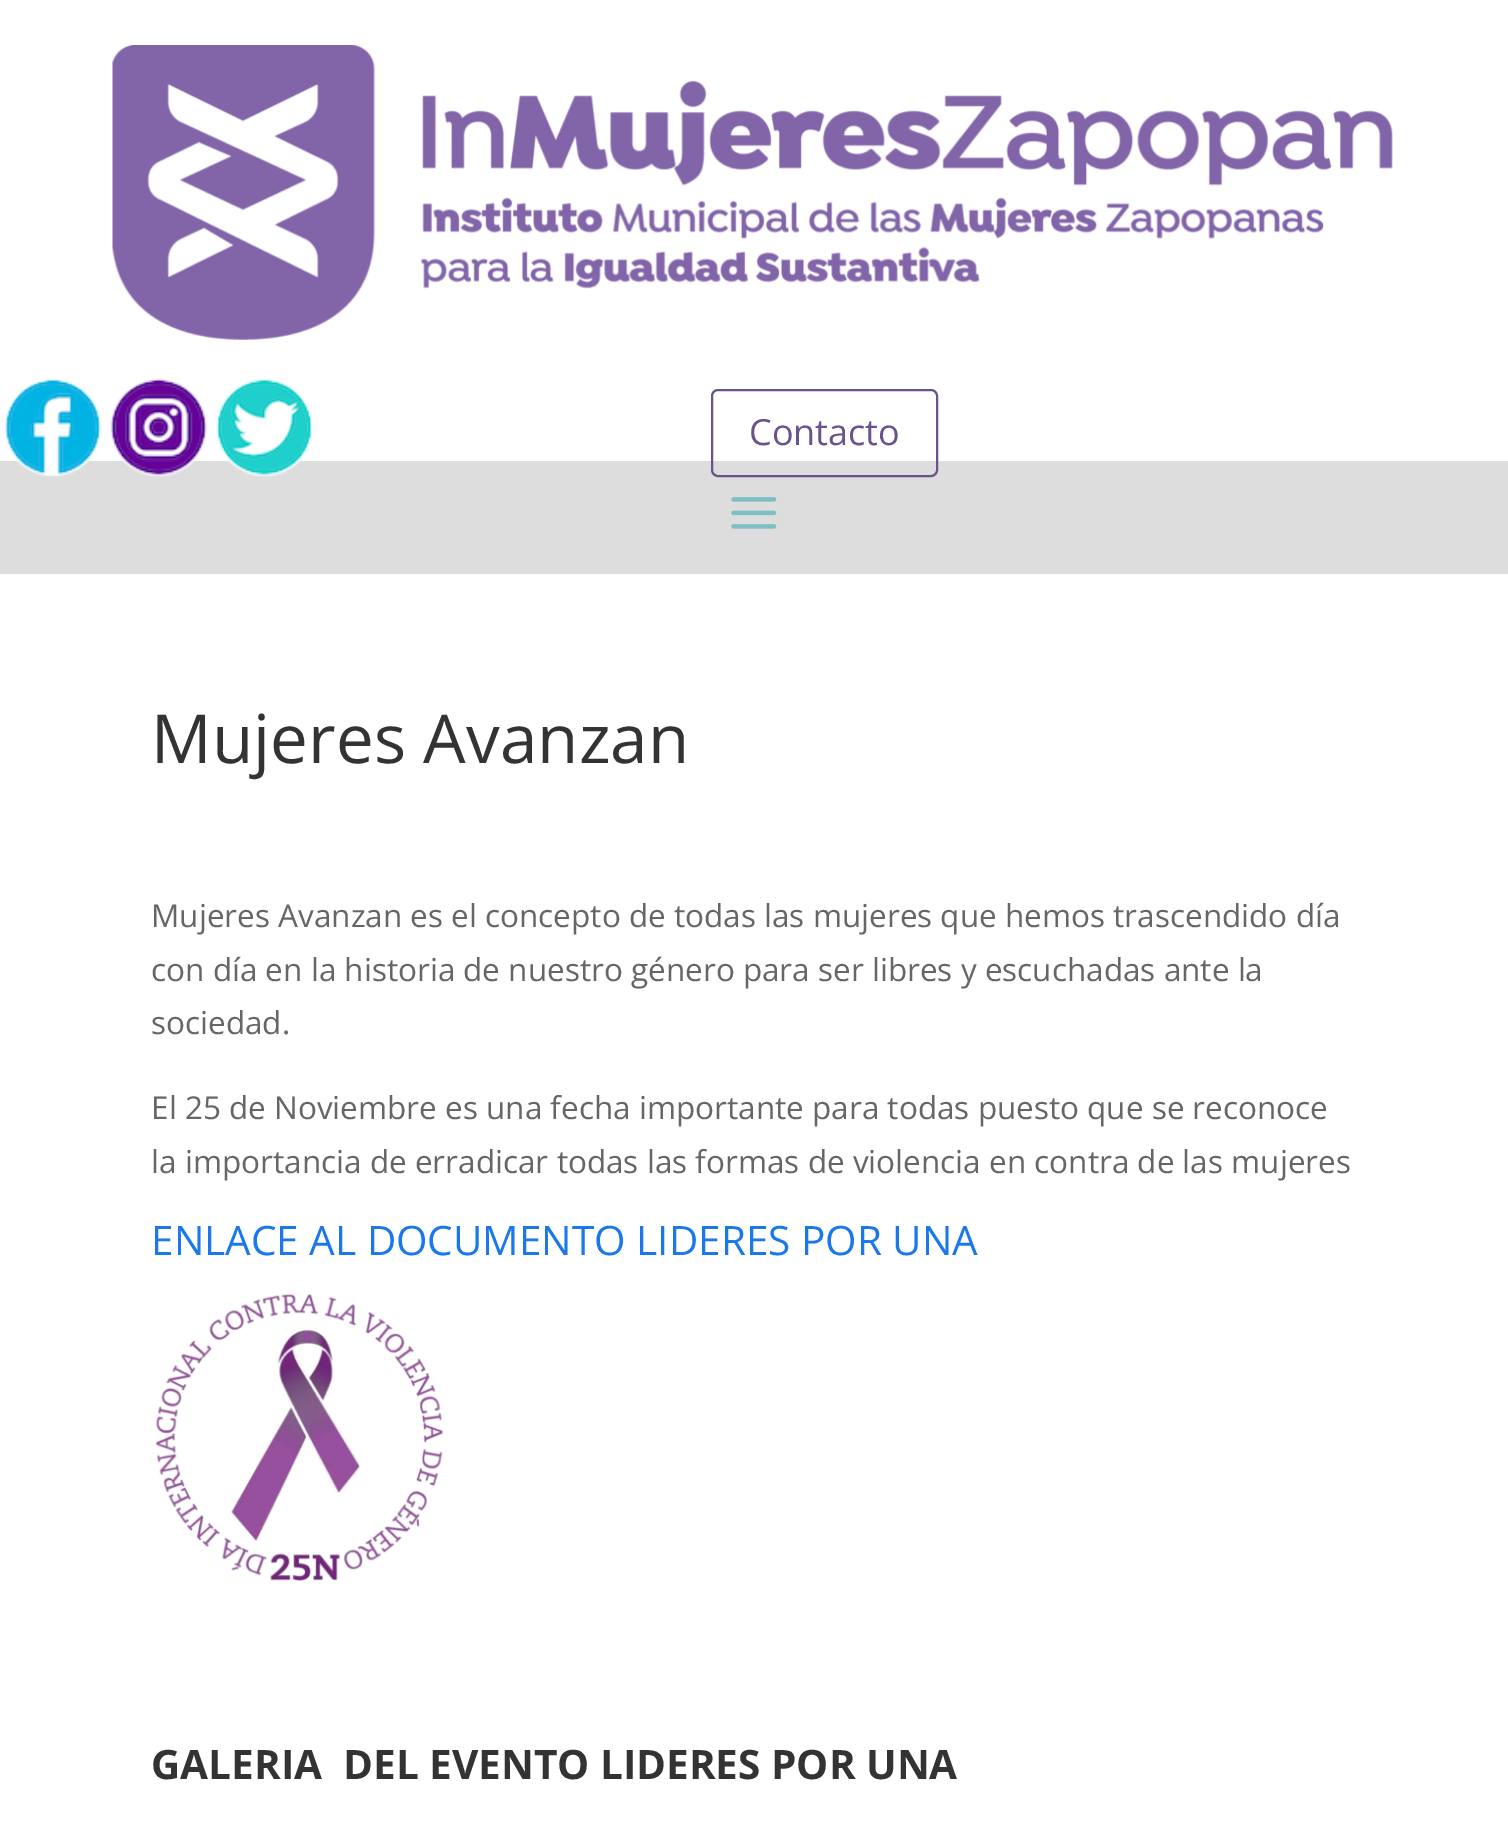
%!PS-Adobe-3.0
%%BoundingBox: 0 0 1508 1824
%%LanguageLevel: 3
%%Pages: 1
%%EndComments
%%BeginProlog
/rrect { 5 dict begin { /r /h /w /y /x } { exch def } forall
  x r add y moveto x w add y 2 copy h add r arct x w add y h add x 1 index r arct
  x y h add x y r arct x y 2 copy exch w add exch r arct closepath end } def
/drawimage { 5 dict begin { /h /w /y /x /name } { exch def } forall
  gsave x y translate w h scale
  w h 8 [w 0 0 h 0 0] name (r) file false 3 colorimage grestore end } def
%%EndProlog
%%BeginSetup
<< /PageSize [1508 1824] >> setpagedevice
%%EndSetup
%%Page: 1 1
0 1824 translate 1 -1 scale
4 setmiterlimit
1 setgray
0 0 1508 1824 rectfill
(images/1.raw) 112 45 1281 295 drawimage
0.867 setgray
0 461 1508 113 rectfill
(images/2.raw) 5 378 96 99 drawimage
(images/3.raw) 110 378 97 99 drawimage
(images/4.raw) 216 378 97 99 drawimage
0.42 0.322 0.549 setrgbcolor
2 setlinewidth
712 390 225 86 6 rrect stroke
(images/5.raw) 731 497 46 32 drawimage
(images/6.raw) 155 1293 289 288 drawimage
/OpenSans-Regular [36 0 0 -36 0 0] selectfont
749 445 moveto (Contacto) show
/OpenSans-Regular [67.5 0 0 -67.5 0 0] selectfont
0.2 setgray
151 763 moveto (Mujeres Avanzan) show
/OpenSans-Regular [31.5 0 0 -31.5 0 0] selectfont
0.4 setgray
151 927 moveto (Mujeres Avanzan es el concepto de todas las mujeres que hemos trascendido día) show
151 981 moveto (con día en la historia de nuestro género para ser libres y escuchadas ante la) show
151 1034 moveto (sociedad.) show
151 1119 moveto (El 25 de Noviembre es una fecha importante para todas puesto que se reconoce) show
151 1173 moveto (la importancia de erradicar todas las formas de violencia en contra de las mujeres) show
/OpenSans-Regular [40.5 0 0 -40.5 0 0] selectfont
0.102 0.471 0.922 setrgbcolor
151 1255 moveto (ENLACE AL DOCUMENTO LIDERES POR UNA) show
/OpenSans-Bold [40.5 0 0 -40.5 0 0] selectfont
0.2 setgray
151 1779 moveto (GALERIA  DEL EVENTO LIDERES POR UNA) show
showpage
%%EOF
